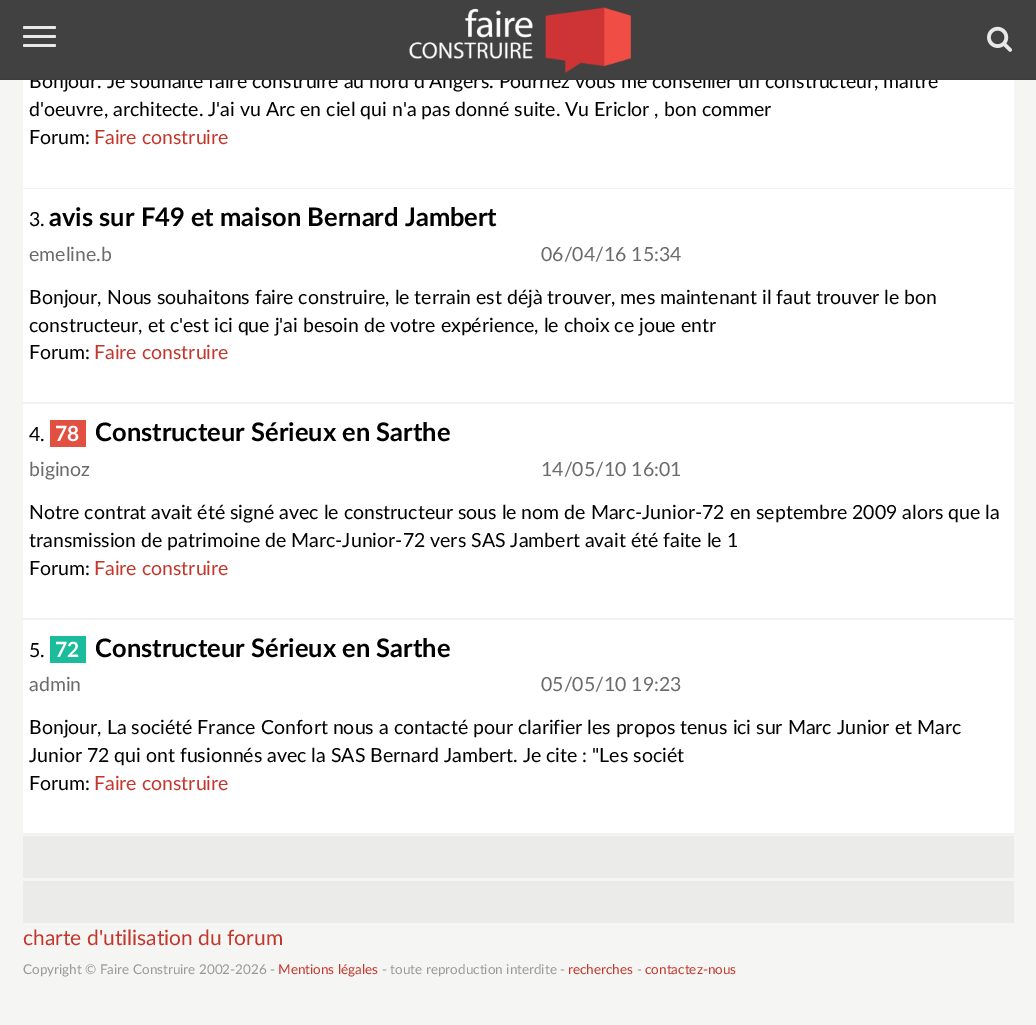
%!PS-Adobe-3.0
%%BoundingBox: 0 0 1036 1025
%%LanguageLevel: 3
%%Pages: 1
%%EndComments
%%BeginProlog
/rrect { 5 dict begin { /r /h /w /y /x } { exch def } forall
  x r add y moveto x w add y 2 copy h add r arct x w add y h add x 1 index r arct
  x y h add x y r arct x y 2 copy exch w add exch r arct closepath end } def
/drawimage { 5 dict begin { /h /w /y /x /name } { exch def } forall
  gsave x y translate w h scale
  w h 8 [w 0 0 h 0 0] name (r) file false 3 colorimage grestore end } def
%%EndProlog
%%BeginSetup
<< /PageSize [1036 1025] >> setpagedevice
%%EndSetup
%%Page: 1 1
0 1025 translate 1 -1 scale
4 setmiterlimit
0.961 0.961 0.953 setrgbcolor
0 0 1036 1025 rectfill
1 setgray
23 80 991 108 rectfill
0.949 setgray
23 188 991 1 rectfill
1 setgray
23 189 991 213 rectfill
0.949 setgray
23 402 991 2 rectfill
1 setgray
23 404 991 214 rectfill
0.949 setgray
23 618 991 2 rectfill
0.886 0.314 0.255 setrgbcolor
50 420 36 27 rectfill
1 setgray
23 620 991 213 rectfill
0.949 setgray
23 833 991 2 rectfill
0.102 0.737 0.612 setrgbcolor
50 636 36 27 rectfill
0.922 0.922 0.914 setrgbcolor
23 836 991 42 rectfill
23 881 991 42 rectfill
/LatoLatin-Regular [19.5 0 0 -19.5 0 0] selectfont
0 setgray
29 88 moveto (Bonjour. Je souhaite faire construire au nord d'Angers. Pourriez vous me conseiller un constructeur, maitre) show
0.259 0.255 0.255 setrgbcolor
0 0 1036 78 rectfill
(images/2.raw) 987 26 25 26 drawimage
0.91 setgray
23 44 33 3 1.5 rrect fill
23 35 33 3 1.5 rrect fill
23 26 33 3 1.5 rrect fill
(images/1.raw) 409 7 222 66 drawimage
0.247 0.243 0.243 setrgbcolor
0 78 1036 2 rectfill
0 setgray
29 116 moveto (d'oeuvre, architecte. J'ai vu Arc en ciel qui n'a pas donné suite. Vu Ericlor , bon commer) show
29 144 moveto (Forum:) show
0.769 0.212 0.173 setrgbcolor
94 144 moveto (Faire construire) show
0 setgray
29 226 moveto (3.) show
/LatoLatin-Bold [25.5 0 0 -25.5 0 0] selectfont
49 226 moveto (avis sur F49 et maison Bernard Jambert) show
/LatoLatin-Regular [19.5 0 0 -19.5 0 0] selectfont
0.42 setgray
29 261 moveto (emeline.b) show
541 261 moveto (06/04/16 15:34) show
0 setgray
29 304 moveto (Bonjour, Nous souhaitons faire construire, le terrain est déjà trouver, mes maintenant il faut trouver le bon) show
29 332 moveto (constructeur, et c'est ici que j'ai besoin de votre expérience, le choix ce joue entr) show
29 359 moveto (Forum:) show
0.769 0.212 0.173 setrgbcolor
94 359 moveto (Faire construire) show
0 setgray
29 441 moveto (4.) show
/LatoLatin-Bold [21 0 0 -21 0 0] selectfont
1 setgray
55 441 moveto (78) show
/LatoLatin-Bold [25.5 0 0 -25.5 0 0] selectfont
0 setgray
95 441 moveto (Constructeur Sérieux en Sarthe) show
/LatoLatin-Regular [19.5 0 0 -19.5 0 0] selectfont
0.42 setgray
29 476 moveto (biginoz) show
541 476 moveto (14/05/10 16:01) show
0 setgray
29 519 moveto (Notre contrat avait été signé avec le constructeur sous le nom de Marc-Junior-72 en septembre 2009 alors que la) show
29 547 moveto (transmission de patrimoine de Marc-Junior-72 vers SAS Jambert avait été faite le 1) show
29 575 moveto (Forum:) show
0.769 0.212 0.173 setrgbcolor
94 575 moveto (Faire construire) show
0 setgray
29 657 moveto (5.) show
/LatoLatin-Bold [21 0 0 -21 0 0] selectfont
1 setgray
55 657 moveto (72) show
/LatoLatin-Bold [25.5 0 0 -25.5 0 0] selectfont
0 setgray
95 657 moveto (Constructeur Sérieux en Sarthe) show
/LatoLatin-Regular [19.5 0 0 -19.5 0 0] selectfont
0.42 setgray
29 691 moveto (admin) show
541 691 moveto (05/05/10 19:23) show
0 setgray
29 734 moveto (Bonjour, La société France Confort nous a contacté pour clarifier les propos tenus ici sur Marc Junior et Marc) show
29 762 moveto (Junior 72 qui ont fusionnés avec la SAS Bernard Jambert. Je cite : "Les sociét) show
29 790 moveto (Forum:) show
0.769 0.212 0.173 setrgbcolor
94 790 moveto (Faire construire) show
/LatoLatin-Regular [21 0 0 -21 0 0] selectfont
23 945 moveto (charte d'utilisation du forum) show
/LatoLatin-Regular [13.5 0 0 -13.5 0 0] selectfont
0.6 setgray
23 974 moveto (Copyright © Faire Construire 2002-2026 -) show
0.769 0.212 0.173 setrgbcolor
278 974 moveto (Mentions légales) show
0.6 setgray
382 974 moveto (- toute reproduction interdite -) show
0.769 0.212 0.173 setrgbcolor
568 974 moveto (recherches) show
0.6 setgray
637 974 moveto (-) show
0.769 0.212 0.173 setrgbcolor
645 974 moveto (contactez-nous) show
showpage
%%EOF
